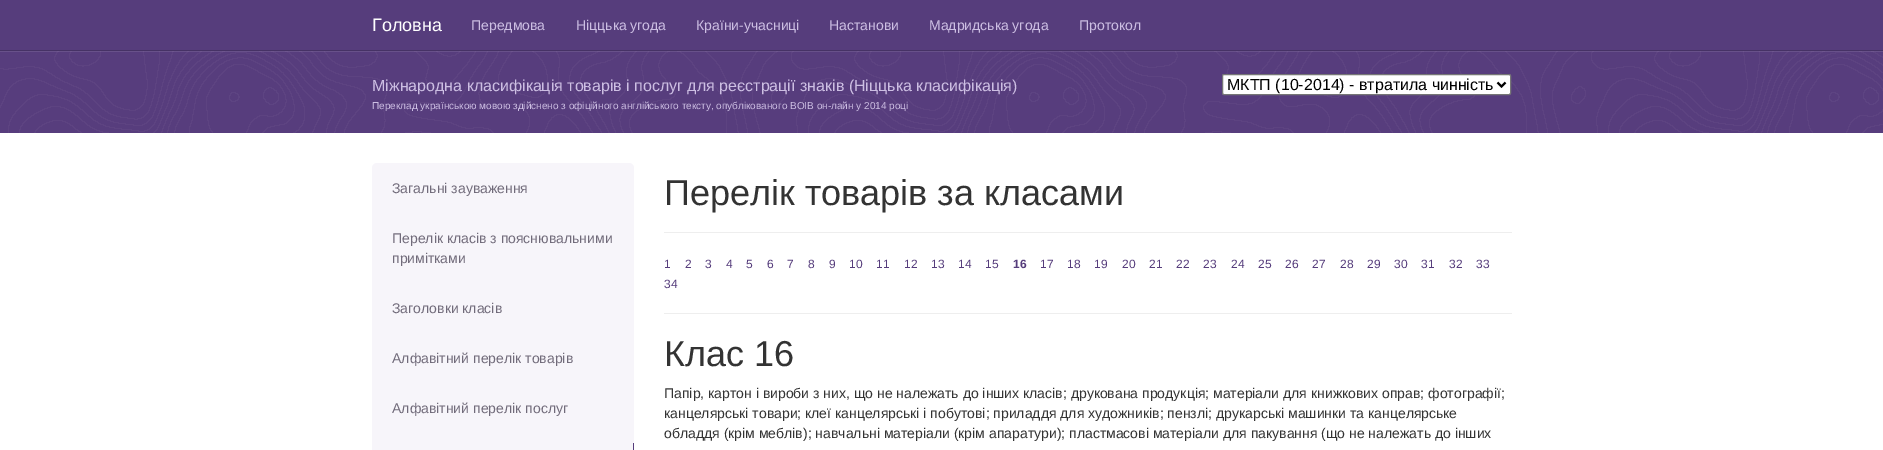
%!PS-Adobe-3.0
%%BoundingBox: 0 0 1883 450
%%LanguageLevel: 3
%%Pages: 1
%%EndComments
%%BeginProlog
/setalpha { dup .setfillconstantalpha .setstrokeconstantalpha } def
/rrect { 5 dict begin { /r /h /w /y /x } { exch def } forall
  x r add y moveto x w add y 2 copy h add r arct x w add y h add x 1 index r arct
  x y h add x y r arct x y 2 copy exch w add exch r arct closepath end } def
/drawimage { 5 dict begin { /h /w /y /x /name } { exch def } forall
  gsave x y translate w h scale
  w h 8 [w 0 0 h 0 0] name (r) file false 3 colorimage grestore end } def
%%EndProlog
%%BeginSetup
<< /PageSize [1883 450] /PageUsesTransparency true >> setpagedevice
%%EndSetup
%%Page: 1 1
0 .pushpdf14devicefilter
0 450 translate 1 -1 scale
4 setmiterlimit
1 setgray
0 0 1883 450 rectfill
(images/1.raw) 0 51 1883 82 drawimage
0.1 setalpha
0 51 1883 1 rectfill
1 setalpha
0.337 0.239 0.486 setrgbcolor
0 0 1883 50 rectfill
0.275 0.196 0.396 setrgbcolor
0 50 1883 1 rectfill
1 setgray
1222.5 74.5 288 20 1.5 rrect gsave fill grestore
0.463 setgray
stroke
0 setgray
2 setlinewidth
newpath 1497.5 82.5 moveto 1501.5 86.5 lineto 1505.5 82.5 lineto stroke
0.969 0.961 0.98 setrgbcolor
372 163 262 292 5 rrect fill
0.337 0.239 0.486 setrgbcolor
633 443 1 7 rectfill
0.933 setgray
664 232 848 1 rectfill
664 313 848 1 rectfill
/LiberationSans-Regular [18 0 0 -18 0 0] selectfont
1 setgray
372 31 moveto (Головна) show
/LiberationSans-Regular [14 0 0 -14 0 0] selectfont
0.804 0.749 0.89 setrgbcolor
471 30 moveto (Передмова) show
576 30 moveto (Ніццька угода) show
696 30 moveto (Країни-учасниці) show
829 30 moveto (Настанови) show
929 30 moveto (Мадридська угода) show
1079 30 moveto (Протокол) show
/LiberationSans-Regular [16 0 0 -16 0 0] selectfont
372 91 moveto (Міжнародна класифікація товарів і послуг для реєстрації знаків \(Ніццька класифікація\)) show
0 setgray
1227 90 moveto (МКТП \(10-2014\) - втратила чинність) show
/LiberationSans-Regular [10 0 0 -10 0 0] selectfont
0.804 0.749 0.89 setrgbcolor
372 109 moveto (Переклад українською мовою здійснено з офіційного англійського тексту, опублікованого ВОІВ он-лайн у 2014 році) show
/LiberationSans-Regular [14 0 0 -14 0 0] selectfont
0.443 0.42 0.478 setrgbcolor
392 193 moveto (Загальні зауваження) show
392 243 moveto (Перелік класів з пояснювальними) show
392 263 moveto (примітками) show
392 313 moveto (Заголовки класів) show
392 363 moveto (Алфавітний перелік товарів) show
392 413 moveto (Алфавітний перелік послуг) show
/LiberationSans-Regular [36 0 0 -36 0 0] selectfont
0.2 setgray
664 205 moveto (Перелік товарів за класами) show
/LiberationSans-Regular [12 0 0 -12 0 0] selectfont
0.337 0.239 0.486 setrgbcolor
664 268 moveto (1) show
685 268 moveto (2) show
705 268 moveto (3) show
726 268 moveto (4) show
746 268 moveto (5) show
767 268 moveto (6) show
787 268 moveto (7) show
808 268 moveto (8) show
829 268 moveto (9) show
849 268 moveto (10) show
876 268 moveto (11) show
904 268 moveto (12) show
931 268 moveto (13) show
958 268 moveto (14) show
985 268 moveto (15) show
/LiberationSans-Bold [12 0 0 -12 0 0] selectfont
1013 268 moveto (16) show
/LiberationSans-Regular [12 0 0 -12 0 0] selectfont
1040 268 moveto (17) show
1067 268 moveto (18) show
1094 268 moveto (19) show
1122 268 moveto (20) show
1149 268 moveto (21) show
1176 268 moveto (22) show
1203 268 moveto (23) show
1231 268 moveto (24) show
1258 268 moveto (25) show
1285 268 moveto (26) show
1312 268 moveto (27) show
1340 268 moveto (28) show
1367 268 moveto (29) show
1394 268 moveto (30) show
1421 268 moveto (31) show
1449 268 moveto (32) show
1476 268 moveto (33) show
664 288 moveto (34) show
/LiberationSans-Regular [36 0 0 -36 0 0] selectfont
0.2 setgray
664 366 moveto (Клас 16) show
/LiberationSans-Regular [14 0 0 -14 0 0] selectfont
664 398 moveto (Папір, картон і вироби з них, що не належать до інших класів; друкована продукція; матеріали для книжкових оправ; фотографії;) show
664 418 moveto (канцелярські товари; клеї канцелярські і побутові; приладдя для художників; пензлі; друкарські машинки та канцелярське) show
664 438 moveto (обладдя \(крім меблів\); навчальні матеріали \(крім апаратури\); пластмасові матеріали для пакування \(що не належать до інших) show
.poppdf14devicefilter showpage
%%EOF
